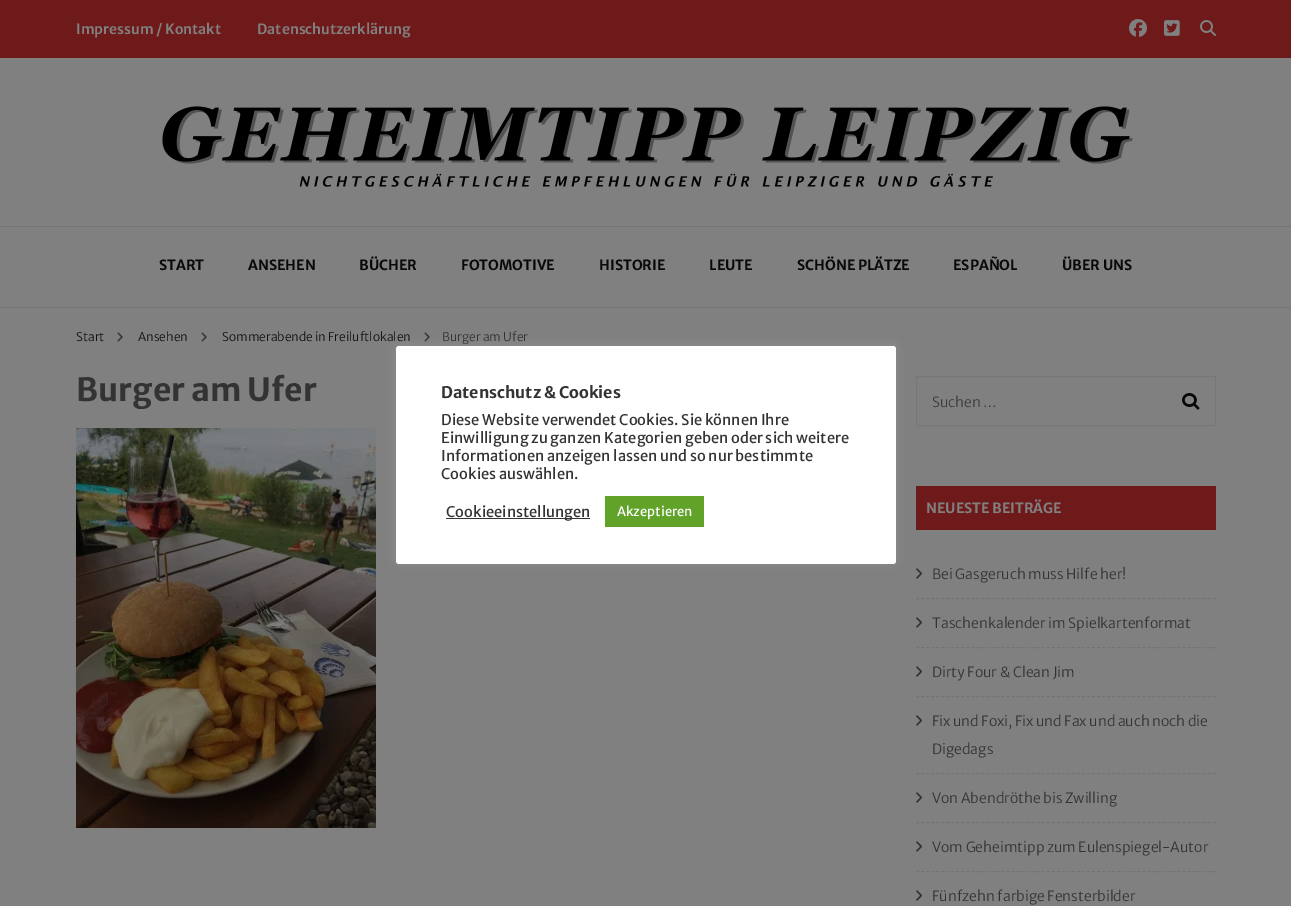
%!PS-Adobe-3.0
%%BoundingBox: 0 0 1291 906
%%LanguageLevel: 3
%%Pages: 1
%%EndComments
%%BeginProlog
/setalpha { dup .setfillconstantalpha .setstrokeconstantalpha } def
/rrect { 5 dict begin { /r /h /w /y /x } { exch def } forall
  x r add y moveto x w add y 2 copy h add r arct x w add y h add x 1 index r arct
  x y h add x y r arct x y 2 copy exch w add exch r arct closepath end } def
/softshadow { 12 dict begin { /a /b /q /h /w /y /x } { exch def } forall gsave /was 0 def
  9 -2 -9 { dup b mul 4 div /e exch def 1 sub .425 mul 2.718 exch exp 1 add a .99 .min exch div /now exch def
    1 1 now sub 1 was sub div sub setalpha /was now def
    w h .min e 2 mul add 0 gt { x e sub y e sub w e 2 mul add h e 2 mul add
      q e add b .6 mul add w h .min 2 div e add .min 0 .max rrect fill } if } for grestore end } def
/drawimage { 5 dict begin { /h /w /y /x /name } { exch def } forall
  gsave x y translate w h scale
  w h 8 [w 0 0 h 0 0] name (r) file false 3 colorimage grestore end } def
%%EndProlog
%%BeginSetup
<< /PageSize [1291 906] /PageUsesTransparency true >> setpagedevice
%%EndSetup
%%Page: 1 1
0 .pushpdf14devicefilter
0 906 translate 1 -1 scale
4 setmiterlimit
0.502 setgray
0 0 1291 906 rectfill
0.435 0.102 0.102 setrgbcolor
0 0 1291 58 rectfill
(images/1.raw) 1129 19 18 18 drawimage
(images/2.raw) 1164 20 16 16 drawimage
(images/3.raw) 1200 20 16 16 drawimage
(images/4.raw) 162 106 971 81 drawimage
0.451 setgray
0 226 1291 1 rectfill
0 307 1291 1 rectfill
(images/5.raw) 117 332 6 10 drawimage
(images/5.raw) 201 332 6 10 drawimage
(images/5.raw) 424 332 6 10 drawimage
(images/6.raw) 76 428 300 400 drawimage
0.467 setgray
916.5 376.5 299 49 rectstroke
(images/7.raw) 1182 393 18 17 drawimage
0.435 0.102 0.102 setrgbcolor
916 486 300 44 rectfill
0.451 setgray
[3 2.03] 0 setdash
newpath 916 598.5 moveto 1216 598.5 lineto stroke
(images/8.raw) 916 568 6 11 drawimage
newpath 916 647.5 moveto 1216 647.5 lineto stroke
(images/8.raw) 916 617 6 11 drawimage
newpath 916 696.5 moveto 1216 696.5 lineto stroke
(images/8.raw) 916 666 6 11 drawimage
newpath 916 773.5 moveto 1216 773.5 lineto stroke
(images/8.raw) 916 715 6 11 drawimage
newpath 916 822.5 moveto 1216 822.5 lineto stroke
(images/8.raw) 916 792 6 11 drawimage
newpath 916 871.5 moveto 1216 871.5 lineto stroke
(images/8.raw) 916 841 6 11 drawimage
(images/8.raw) 916 890 6 11 drawimage
0.675 0.671 0.671 setrgbcolor
396 345 500 218 3 5 0.3 softshadow
1 setgray
396 346 500 218 3 rrect fill
0.2 setgray
446 518 144 1 rectfill
0.38 0.635 0.161 setrgbcolor
605 496 99 31 rectfill
/MerriweatherSans-SemiBold [14 0 0 -14 0 0] selectfont
0.502 setgray
76 34 moveto (Impressum / Kontakt) show
257 34 moveto (Datenschutzerklärung) show
/MerriweatherSans-Bold [14 0 0 -14 0 0] selectfont
0.035 setgray
159 270 moveto (START) show
248 270 moveto (ANSEHEN) show
359 270 moveto (BÜCHER) show
461 270 moveto (FOTOMOTIVE) show
599 270 moveto (HISTORIE) show
709 270 moveto (LEUTE) show
797 270 moveto (SCHÖNE PLÄTZE) show
953 270 moveto (ESPAÑOL) show
1062 270 moveto (ÜBER UNS) show
/MerriweatherSans-Light [12 0 0 -12 0 0] selectfont
0.067 setgray
76 341 moveto (Start) show
138 341 moveto (Ansehen) show
222 341 moveto (Sommerabende in Freiluftlokalen) show
0.2 setgray
442 341 moveto (Burger am Ufer) show
/MerriweatherSans-Bold [32 0 0 -32 0 0] selectfont
76 401 moveto (Burger am Ufer) show
/MerriweatherSans-Light [14 0 0 -14 0 0] selectfont
0.231 setgray
932 407 moveto (Suchen …) show
/MerriweatherSans-Bold [14 0 0 -14 0 0] selectfont
0.502 setgray
926 513 moveto (NEUESTE BEITRÄGE) show
/MerriweatherSans-Light [14 0 0 -14 0 0] selectfont
0.2 setgray
932 579 moveto (Bei Gasgeruch muss Hilfe her!) show
932 628 moveto (Taschenkalender im Spielkartenformat) show
932 677 moveto (Dirty Four & Clean Jim) show
932 726 moveto (Fix und Foxi, Fix und Fax und auch noch die) show
932 754 moveto (Digedags) show
932 803 moveto (Von Abendröthe bis Zwilling) show
932 852 moveto (Vom Geheimtipp zum Eulenspiegel-Autor) show
932 901 moveto (Fünfzehn farbige Fensterbilder) show
/MerriweatherSans-Bold [16 0 0 -16 0 0] selectfont
441 398 moveto (Datenschutz & Cookies) show
/MerriweatherSans-Regular [14.7 0 0 -14.7 0 0] selectfont
441 425 moveto (Diese Website verwendet Cookies. Sie können Ihre) show
441 443 moveto (Einwilligung zu ganzen Kategorien geben oder sich weitere) show
441 461 moveto (Informationen anzeigen lassen und so nur bestimmte) show
441 479 moveto (Cookies auswählen.) show
446 517 moveto (Cookieeinstellungen) show
/MerriweatherSans-Regular [13 0 0 -13 0 0] selectfont
1 setgray
617 516 moveto (Akzeptieren) show
.poppdf14devicefilter showpage
%%EOF
